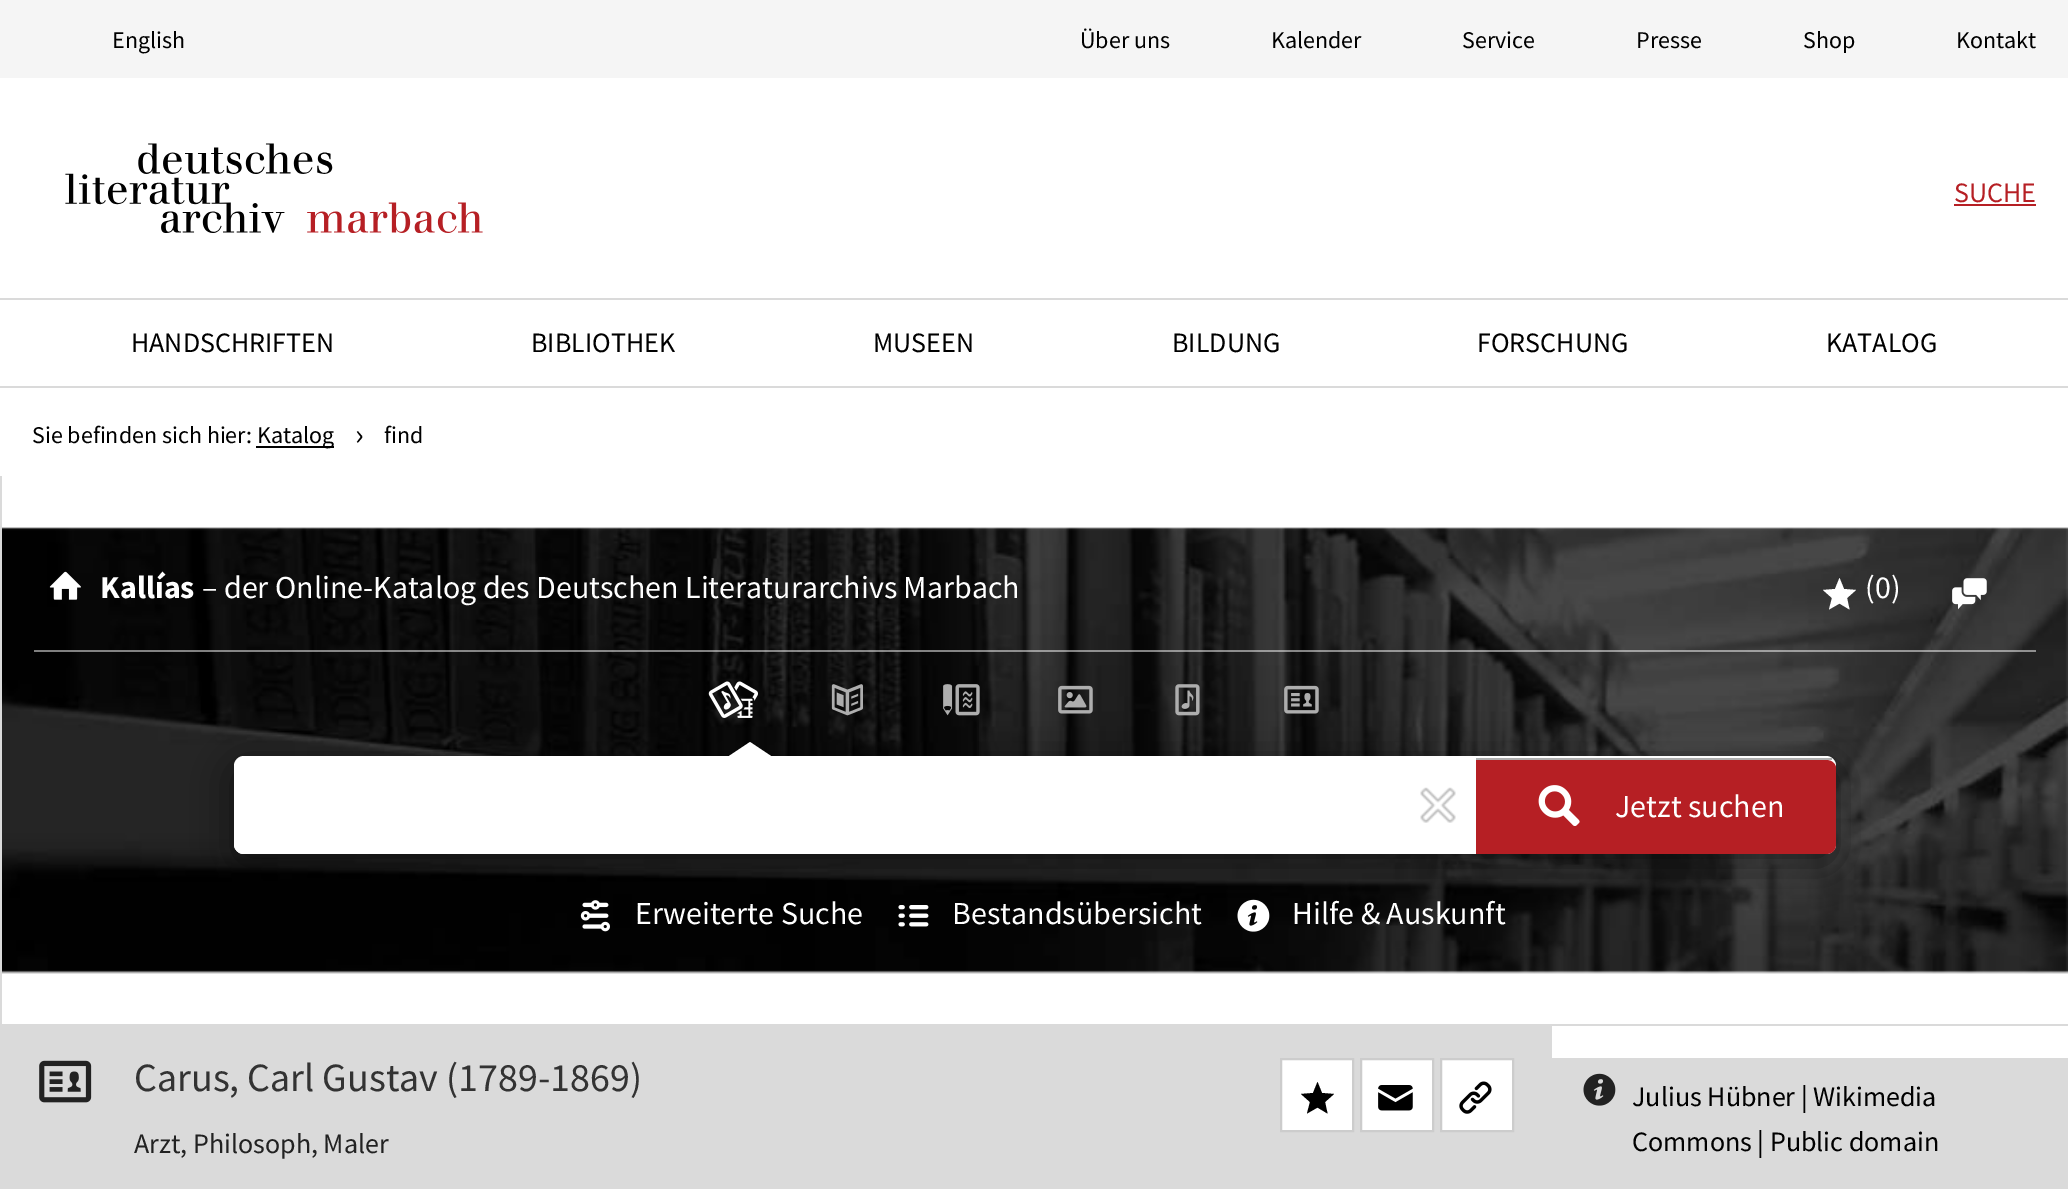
%!PS-Adobe-3.0
%%BoundingBox: 0 0 2068 1189
%%LanguageLevel: 3
%%Pages: 1
%%EndComments
%%BeginProlog
/setalpha { dup .setfillconstantalpha .setstrokeconstantalpha } def
/rrect { 5 dict begin { /r /h /w /y /x } { exch def } forall
  x r add y moveto x w add y 2 copy h add r arct x w add y h add x 1 index r arct
  x y h add x y r arct x y 2 copy exch w add exch r arct closepath end } def
/softshadow { 12 dict begin { /a /b /q /h /w /y /x } { exch def } forall gsave /was 0 def
  9 -2 -9 { dup b mul 4 div /e exch def 1 sub .425 mul 2.718 exch exp 1 add a .99 .min exch div /now exch def
    1 1 now sub 1 was sub div sub setalpha /was now def
    w h .min e 2 mul add 0 gt { x e sub y e sub w e 2 mul add h e 2 mul add
      q e add b .6 mul add w h .min 2 div e add .min 0 .max rrect fill } if } for grestore end } def
/drawimage { 5 dict begin { /h /w /y /x /name } { exch def } forall
  gsave x y translate w h scale
  w h 8 [w 0 0 h 0 0] name (r) file false 3 colorimage grestore end } def
%%EndProlog
%%BeginSetup
<< /PageSize [2068 1189] /PageUsesTransparency true >> setpagedevice
%%EndSetup
%%Page: 1 1
0 .pushpdf14devicefilter
0 1189 translate 1 -1 scale
4 setmiterlimit
1 setgray
0 0 2068 1189 rectfill
0.961 setgray
0 0 2068 78 rectfill
(images/1.raw) 65 143 418 90 drawimage
0.714 0.122 0.141 setrgbcolor
1954 204 82 2 rectfill
0.855 setgray
0 298 2068 2 rectfill
0 386 2068 2 rectfill
0 setgray
256 446 78 2 rectfill
0.855 setgray
0 476 2 713 rectfill
(images/2.raw) 2 527 2066 447 drawimage
0.5 setalpha
1 setgray
34 650 2002 2 rectfill
1 setalpha
(images/3.raw) 49 571 32 29 drawimage
newpath 1839.5 578 moveto 1844 589 lineto 1856 590 lineto 1847 598 lineto 1849.5 609.5 lineto 1839.5 603.5 lineto 1829 609.5 lineto 1832 598 lineto 1823 590 lineto 1835 589 lineto closepath fill
(images/4.raw) 1952 578 35 32 drawimage
0 setgray
234 766 1602 98 10 20 0.5 softshadow
(images/5.raw) 708 681 50 37 drawimage
1 setgray
234 756 1602 98 10 rrect fill
newpath 774 758 moveto 726 758 lineto 750 742 lineto closepath fill
(images/6.raw) 831 684 32 32 drawimage
(images/7.raw) 943 684 37 32 drawimage
(images/8.raw) 1058 685 35 29 drawimage
(images/9.raw) 1175 684 25 32 drawimage
(images/10.raw) 1284 685 35 29 drawimage
newpath 244 758 moveto 1420 758 lineto 1420 854 lineto 244 854 lineto 238.5 854 234 849.5 234 844 curveto 234 768 lineto 234 762.5 238.5 758 244 758 curveto closepath fill
(images/11.raw) 1420 787 36 36 drawimage
0.714 0.122 0.141 setrgbcolor
newpath 1476 760 moveto 1826 760 lineto 1832 760 1836 764 1836 768 curveto 1836 844 lineto 1836 850 1832 854 1826 854 curveto 1476 854 lineto closepath fill
0.682 setgray
1476 758 356 2 rectfill
(images/12.raw) 1538 785 42 41 drawimage
(images/13.raw) 580 900 30 32 drawimage
(images/14.raw) 898 905 31 22 drawimage
(images/15.raw) 1237 899 33 33 drawimage
0.855 setgray
2 1024 2066 2 rectfill
2 1026 1550 163 rectfill
(images/16.raw) 39 1060 53 43 drawimage
1 setgray
newpath 1281 1059 moveto 1353 1059 lineto 1353 1131 lineto 1281 1131 lineto closepath gsave fill grestore
0.8 setgray
2 setlinewidth
stroke
0 setgray
newpath 1317.5 1082 moveto 1322 1093 lineto 1334 1094 lineto 1325 1102 lineto 1327.5 1113.5 lineto 1317.5 1107.5 lineto 1307 1113.5 lineto 1310 1102 lineto 1301 1094 lineto 1313 1093 lineto closepath fill
1 setgray
newpath 1361 1059 moveto 1433 1059 lineto 1433 1131 lineto 1361 1131 lineto closepath gsave fill grestore
0.8 setgray
stroke
(images/17.raw) 1378 1085 35 26 drawimage
1 setgray
newpath 1441 1059 moveto 1513 1059 lineto 1513 1131 lineto 1441 1131 lineto closepath gsave fill grestore
0.8 setgray
stroke
(images/18.raw) 1459 1081 33 33 drawimage
0.855 setgray
1552 1058 516 131 rectfill
(images/19.raw) 1583 1073 33 33 drawimage
/SourceSansPro-Regular [24 0 0 -24 0 0] selectfont
0 setgray
112 48 moveto (English) show
1080 48 moveto (Über uns) show
1271 48 moveto (Kalender) show
1462 48 moveto (Service) show
1636 48 moveto (Presse) show
1803 48 moveto (Shop) show
1956 48 moveto (Kontakt) show
/SourceSansPro-Regular [28 0 0 -28 0 0] selectfont
0.714 0.122 0.141 setrgbcolor
1954 202 moveto (SUCHE) show
0 setgray
131 352 moveto (HANDSCHRIFTEN) show
531 352 moveto (BIBLIOTHEK) show
873 352 moveto (MUSEEN) show
1172 352 moveto (BILDUNG) show
1477 352 moveto (FORSCHUNG) show
1826 352 moveto (KATALOG) show
/SourceSansPro-Regular [24 0 0 -24 0 0] selectfont
32 443 moveto (Sie befinden sich hier:) show
257 443 moveto (Katalog) show
/SourceSansPro-Regular [32 0 0 -32 0 0] selectfont
355 445 moveto (›) show
/SourceSansPro-Regular [24 0 0 -24 0 0] selectfont
384 443 moveto (find) show
/SourceSansPro-Bold [32 0 0 -32 0 0] selectfont
1 setgray
100 598 moveto (Kallías) show
/SourceSansPro-Regular [32 0 0 -32 0 0] selectfont
202 598 moveto (– der Online-Katalog des Deutschen Literaturarchivs Marbach) show
1865 598 moveto (\(0\)) show
1615 817 moveto (Jetzt suchen) show
635 924 moveto (Erweiterte Suche) show
952 924 moveto (Bestandsübersicht) show
1292 924 moveto (Hilfe & Auskunft) show
/SourceSansPro-Regular [40 0 0 -40 0 0] selectfont
0.2 setgray
134 1091 moveto (Carus, Carl Gustav \(1789-1869\)) show
/SourceSansPro-Regular [28 0 0 -28 0 0] selectfont
0.133 setgray
134 1153 moveto (Arzt, Philosoph, Maler) show
0 setgray
1632 1106 moveto (Julius Hübner | Wikimedia) show
1632 1151 moveto (Commons | Public domain) show
.poppdf14devicefilter showpage
%%EOF
